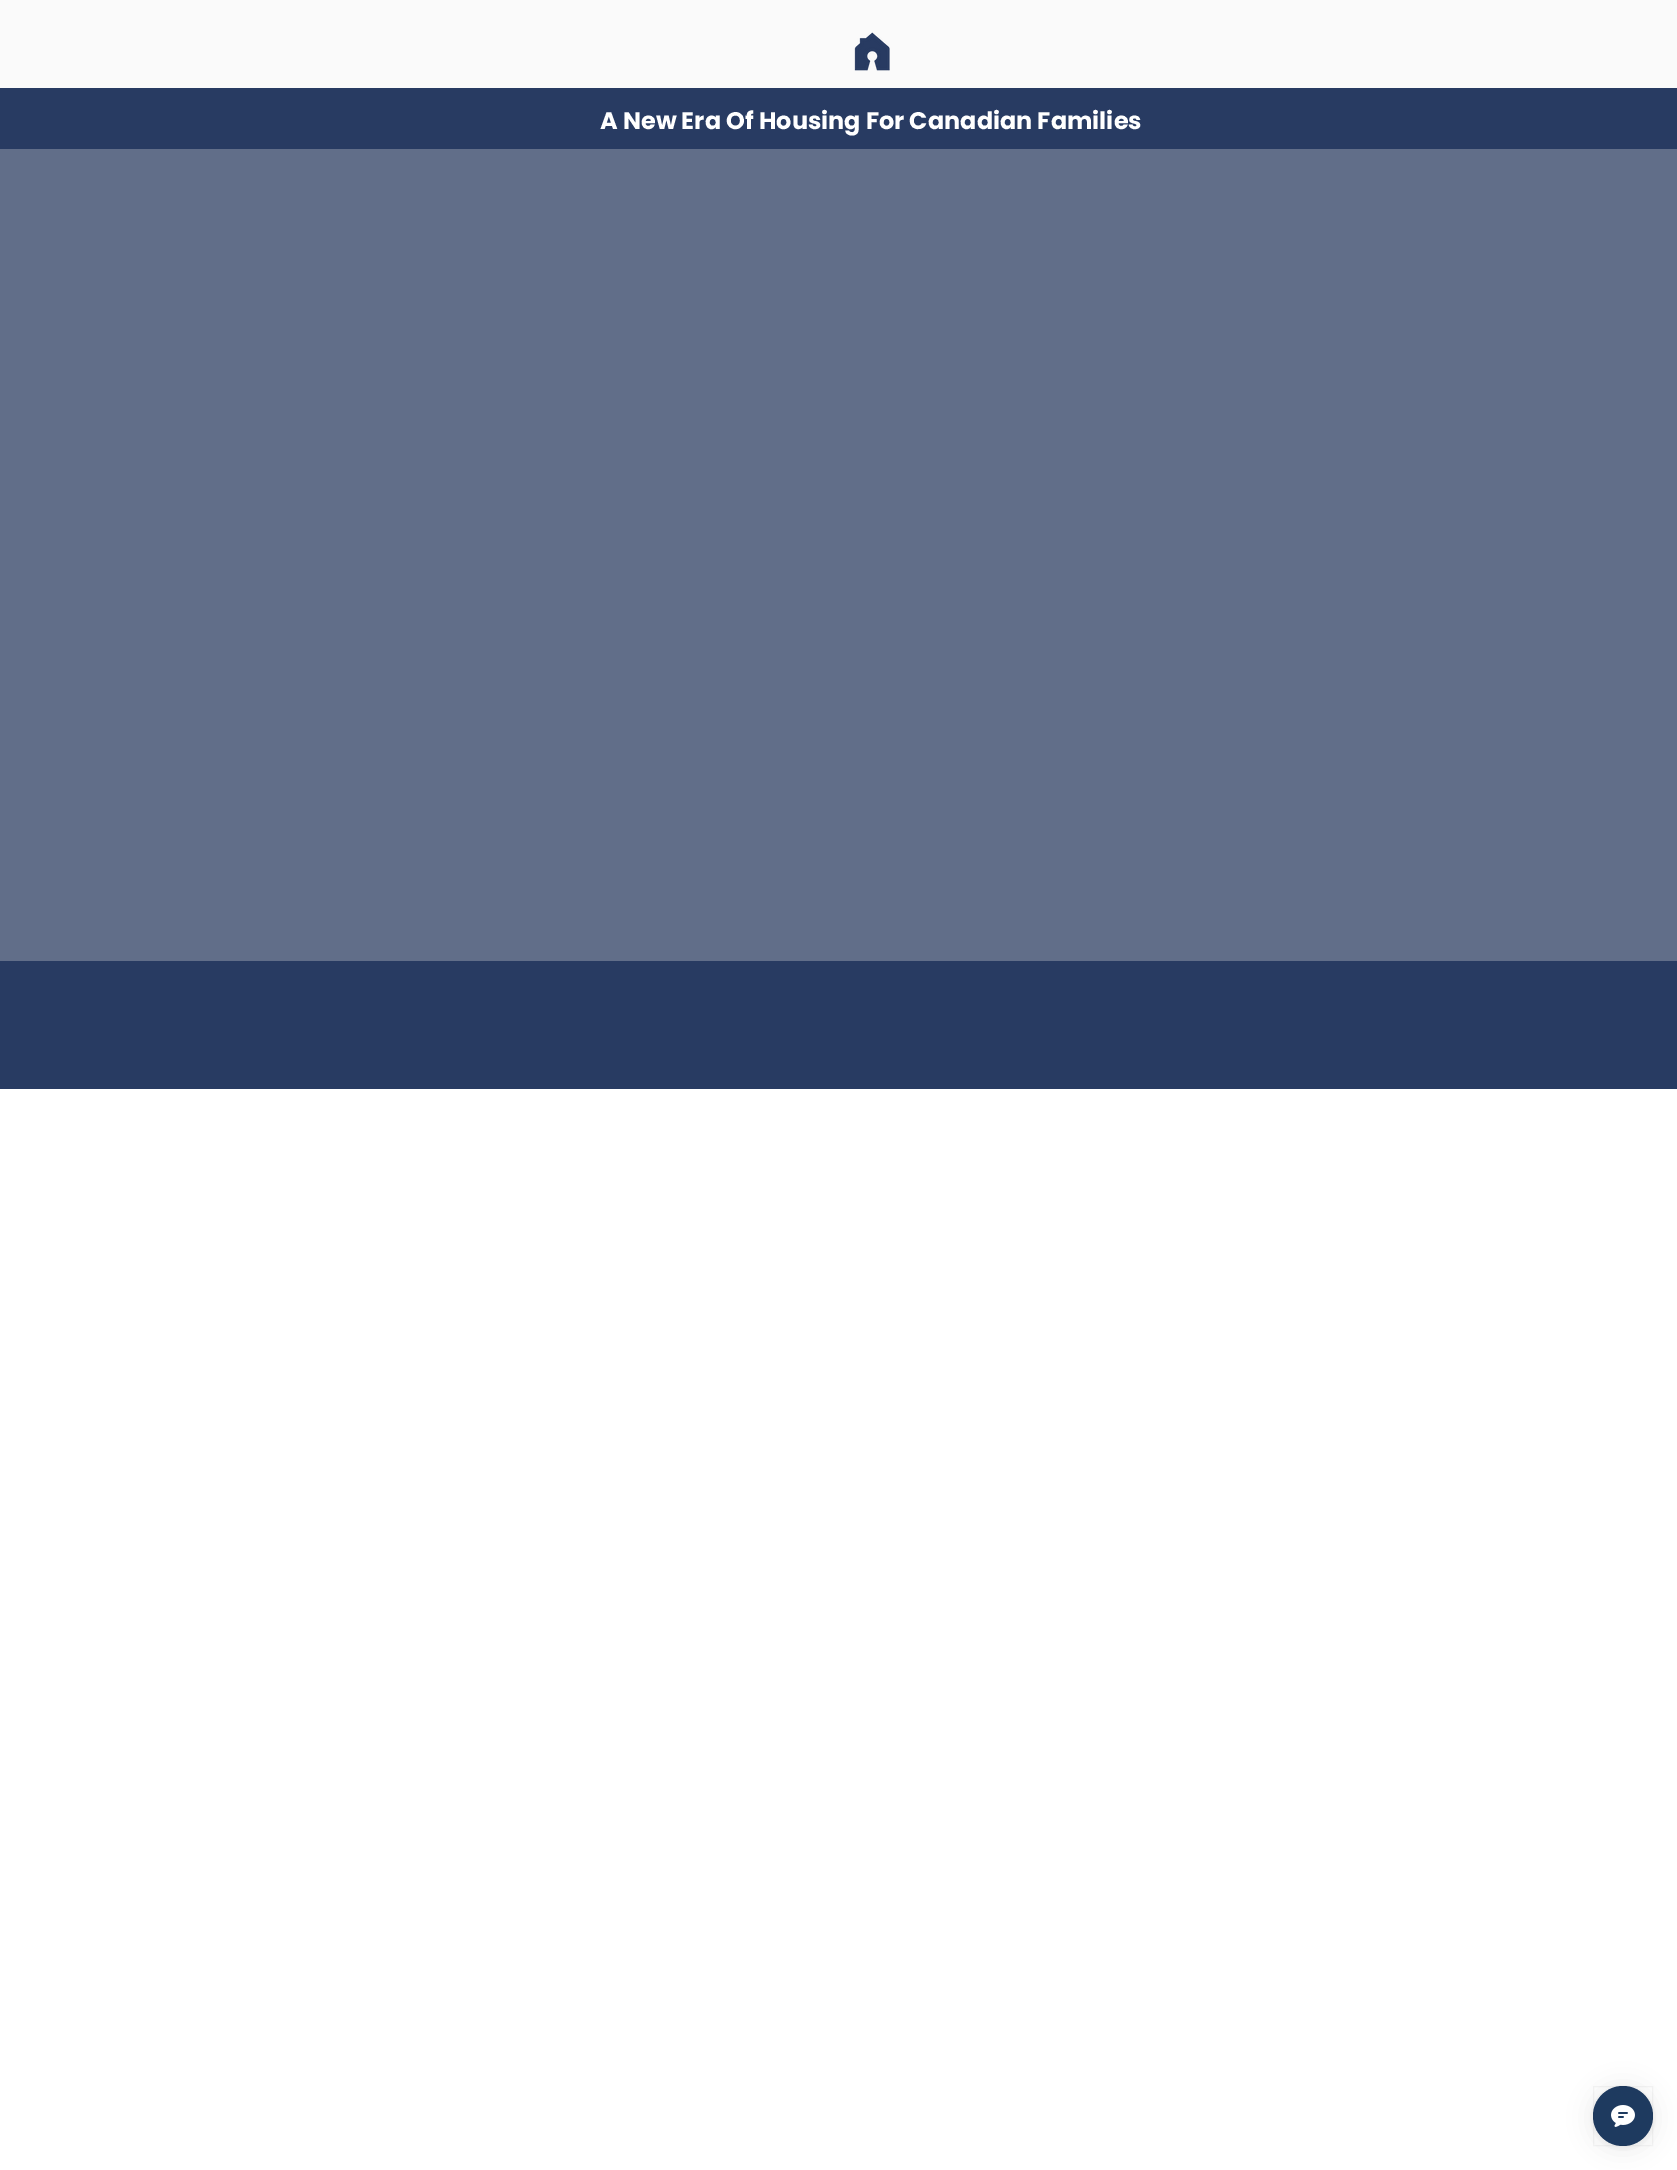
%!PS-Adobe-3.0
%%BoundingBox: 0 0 1677 2170
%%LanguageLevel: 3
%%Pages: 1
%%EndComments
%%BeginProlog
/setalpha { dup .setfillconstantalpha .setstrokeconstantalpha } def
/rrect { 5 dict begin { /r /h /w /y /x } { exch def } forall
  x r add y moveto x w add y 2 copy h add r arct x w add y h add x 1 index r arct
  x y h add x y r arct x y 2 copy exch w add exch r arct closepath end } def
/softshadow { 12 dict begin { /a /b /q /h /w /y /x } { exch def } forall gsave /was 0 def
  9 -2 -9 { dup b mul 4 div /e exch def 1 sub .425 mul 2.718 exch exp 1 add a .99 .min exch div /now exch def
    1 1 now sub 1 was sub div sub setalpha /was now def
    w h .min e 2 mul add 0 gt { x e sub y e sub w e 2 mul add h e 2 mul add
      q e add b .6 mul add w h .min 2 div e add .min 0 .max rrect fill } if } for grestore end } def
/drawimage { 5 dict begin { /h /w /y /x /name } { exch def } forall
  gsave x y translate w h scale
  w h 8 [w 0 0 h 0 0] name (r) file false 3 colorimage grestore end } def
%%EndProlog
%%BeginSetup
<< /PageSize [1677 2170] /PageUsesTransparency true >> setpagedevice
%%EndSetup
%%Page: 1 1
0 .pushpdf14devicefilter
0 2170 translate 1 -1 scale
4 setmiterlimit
1 setgray
0 0 1677 2170 rectfill
0.157 0.231 0.384 setrgbcolor
0 88 1677 1001 rectfill
0.98 setgray
0 0 1677 88 rectfill
(images/1.raw) 854 32 36 39 drawimage
0.38 0.431 0.537 setrgbcolor
0 149 1677 812 rectfill
0 setgray
1593 2088 60 60 30 12 0.08 softshadow
1593 2087 60 60 30 3 0.06 softshadow
0.118 0.227 0.373 setrgbcolor
newpath 1623 2116 30 0 360 arc closepath fill
0.04 setalpha
0 setgray
1593.5 2086.5 59 59 rectstroke
1 setalpha
(images/2.raw) 1611 2105 24 22 drawimage
/Poppins-Bold [24 0 0 -24 0 0] selectfont
1 setgray
600 129 moveto (A New Era Of Housing For Canadian Families) show
.poppdf14devicefilter showpage
%%EOF
